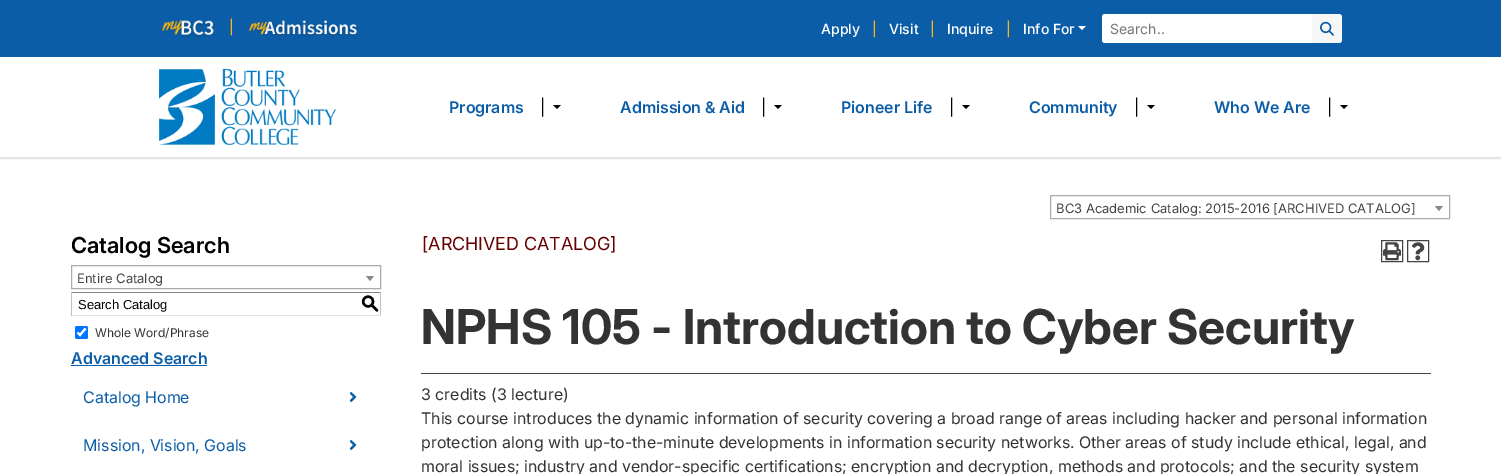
%!PS-Adobe-3.0
%%BoundingBox: 0 0 1501 474
%%LanguageLevel: 3
%%Pages: 1
%%EndComments
%%BeginProlog
/setalpha { dup .setfillconstantalpha .setstrokeconstantalpha } def
/rrect { 5 dict begin { /r /h /w /y /x } { exch def } forall
  x r add y moveto x w add y 2 copy h add r arct x w add y h add x 1 index r arct
  x y h add x y r arct x y 2 copy exch w add exch r arct closepath end } def
/softshadow { 12 dict begin { /a /b /q /h /w /y /x } { exch def } forall gsave /was 0 def
  9 -2 -9 { dup b mul 4 div /e exch def 1 sub .425 mul 2.718 exch exp 1 add a .99 .min exch div /now exch def
    1 1 now sub 1 was sub div sub setalpha /was now def
    w h .min e 2 mul add 0 gt { x e sub y e sub w e 2 mul add h e 2 mul add
      q e add b .6 mul add w h .min 2 div e add .min 0 .max rrect fill } if } for grestore end } def
/drawimage { 5 dict begin { /h /w /y /x /name } { exch def } forall
  gsave x y translate w h scale
  w h 8 [w 0 0 h 0 0] name (r) file false 3 colorimage grestore end } def
%%EndProlog
%%BeginSetup
<< /PageSize [1501 474] /PageUsesTransparency true >> setpagedevice
%%EndSetup
%%Page: 1 1
0 .pushpdf14devicefilter
0 474 translate 1 -1 scale
4 setmiterlimit
1 setgray
0 0 1501 474 rectfill
gsave
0 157 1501 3 rectclip
0 setgray
0 0 1501 157 0 2.5 0.25 softshadow
grestore
0.043 0.365 0.655 setrgbcolor
0 0 1501 57 rectfill
(images/1.raw) 161 19 54 19 drawimage
(images/2.raw) 248 20 110 17 drawimage
1 setgray
newpath 1078 26 moveto 1086 26 lineto 1082 30 lineto closepath fill
newpath 1105 14 moveto 1312 14 lineto 1312 43 lineto 1105 43 lineto 1103.5 43 1102 41.5 1102 40 curveto 1102 17 lineto 1102 15.5 1103.5 14 1105 14 curveto closepath fill
0.969 setgray
newpath 1312 14 moveto 1339 14 lineto 1340.5 14 1342 15.5 1342 17 curveto 1342 40 lineto 1342 41.5 1340.5 43 1339 43 curveto 1312 43 lineto closepath fill
(images/3.raw) 1320 21 14 15 drawimage
(images/4.raw) 159 69 177 76 drawimage
0 setgray
newpath 553 105 moveto 561 105 lineto 557 109 lineto closepath fill
newpath 774 105 moveto 782 105 lineto 778 109 lineto closepath fill
newpath 962 105 moveto 970 105 lineto 966 109 lineto closepath fill
newpath 1147 105 moveto 1155 105 lineto 1151 109 lineto closepath fill
newpath 1340 105 moveto 1348 105 lineto 1344 109 lineto closepath fill
0.667 setgray
1050.5 195.5 399 23 rectstroke
0.533 setgray
newpath 1435 206 moveto 1443 206 lineto 1439 211 lineto closepath fill
0.667 setgray
71.5 265.5 309 23 rectstroke
0.533 setgray
newpath 366 276 moveto 374 276 lineto 370 281 lineto closepath fill
0.518 setgray
71 292 310 1 rectfill
0.757 setgray
380 292 1 24 rectfill
0.882 setgray
71 315 310 1 rectfill
0.757 setgray
71 292 1 24 rectfill
0 0.459 1 setrgbcolor
75 326 13 13 2 rrect fill
1 setgray
2.1 setlinewidth
newpath 77.5 332.5 moveto 80 335 lineto 85.5 328.5 lineto stroke
0.043 0.365 0.655 setrgbcolor
71 365 136 1 rectfill
(images/5.raw) 349 392 8 10 drawimage
(images/5.raw) 349 440 8 10 drawimage
0.267 setgray
1 setlinewidth
1381.5 240.5 21 21 rectstroke
(images/6.raw) 1383 242 18 19 drawimage
1407.5 240.5 21 21 rectstroke
(images/7.raw) 1412 242 13 19 drawimage
421 373 1010 1 rectfill
/Inter-Medium [14 0 0 -14 0 0] selectfont
0.992 0.718 0.078 setrgbcolor
229 32 moveto (|) show
1 setgray
821 34 moveto (Apply) show
0.992 0.718 0.078 setrgbcolor
872 34 moveto (|) show
1 setgray
889 34 moveto (Visit) show
0.992 0.718 0.078 setrgbcolor
930 34 moveto (|) show
1 setgray
947 34 moveto (Inquire) show
0.992 0.718 0.078 setrgbcolor
1006 34 moveto (|) show
1 setgray
1023 34 moveto (Info For) show
/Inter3-Regular [14 0 0 -14 0 0] selectfont
0.459 setgray
1110 34 moveto (Search..) show
/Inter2-SemiBold [16 0 0 -16 0 0] selectfont
0.043 0.365 0.655 setrgbcolor
449 113 moveto (Programs) show
/Inter2-Regular [16 0 0 -16 0 0] selectfont
0 setgray
540 113 moveto (|) show
/Inter2-SemiBold [16 0 0 -16 0 0] selectfont
0.043 0.365 0.655 setrgbcolor
620 113 moveto (Admission & Aid) show
/Inter2-Regular [16 0 0 -16 0 0] selectfont
0 setgray
761 113 moveto (|) show
/Inter2-SemiBold [16 0 0 -16 0 0] selectfont
0.043 0.365 0.655 setrgbcolor
841 113 moveto (Pioneer Life) show
/Inter2-Regular [16 0 0 -16 0 0] selectfont
0 setgray
949 113 moveto (|) show
/Inter2-SemiBold [16 0 0 -16 0 0] selectfont
0.043 0.365 0.655 setrgbcolor
1029 113 moveto (Community) show
/Inter2-Regular [16 0 0 -16 0 0] selectfont
0 setgray
1134 113 moveto (|) show
/Inter2-SemiBold [16 0 0 -16 0 0] selectfont
0.043 0.365 0.655 setrgbcolor
1214 113 moveto (Who We Are) show
/Inter2-Regular [16 0 0 -16 0 0] selectfont
0 setgray
1327 113 moveto (|) show
/Inter3-Regular [13 0 0 -13 0 0] selectfont
0.267 setgray
1056 213 moveto (BC3 Academic Catalog: 2015-2016 [ARCHIVED CATALOG]) show
/Inter-SemiBold [22 0 0 -22 0 0] selectfont
0 setgray
71 253 moveto (Catalog Search) show
/Inter3-Regular [13 0 0 -13 0 0] selectfont
0.267 setgray
77 283 moveto (Entire Catalog) show
/LiberationSans-Regular [13 0 0 -13 0 0] selectfont
0 setgray
78 309 moveto (Search Catalog) show
/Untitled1-Medium [18 0 0 -18 0 0] selectfont
361 309 moveto (S) show
/Inter3-Regular [12 0 0 -12 0 0] selectfont
0.2 setgray
95 337 moveto (Whole Word/Phrase) show
/Inter2-SemiBold [16 0 0 -16 0 0] selectfont
0.043 0.365 0.655 setrgbcolor
71 364 moveto (Advanced Search) show
/Inter2-Regular [16 0 0 -16 0 0] selectfont
83 403 moveto (Catalog Home) show
83 451 moveto (Mission, Vision, Goals) show
/Inter-Regular [18 0 0 -18 0 0] selectfont
0.4 0 0 setrgbcolor
422 250 moveto ([ARCHIVED CATALOG]) show
/Inter-Bold [48 0 0 -48 0 0] selectfont
0.2 setgray
421 344 moveto (NPHS 105 - Introduction to Cyber Security) show
/Inter2-Regular [16 0 0 -16 0 0] selectfont
421 400 moveto (3 credits \(3 lecture\)) show
421 424 moveto (This course introduces the dynamic information of security covering a broad range of areas including hacker and personal information) show
421 448 moveto (protection along with up-to-the-minute developments in information security networks. Other areas of study include ethical, legal, and) show
421 472 moveto (moral issues; industry and vendor-specific certifications; encryption and decryption, methods and protocols; and the security system) show
.poppdf14devicefilter showpage
%%EOF
